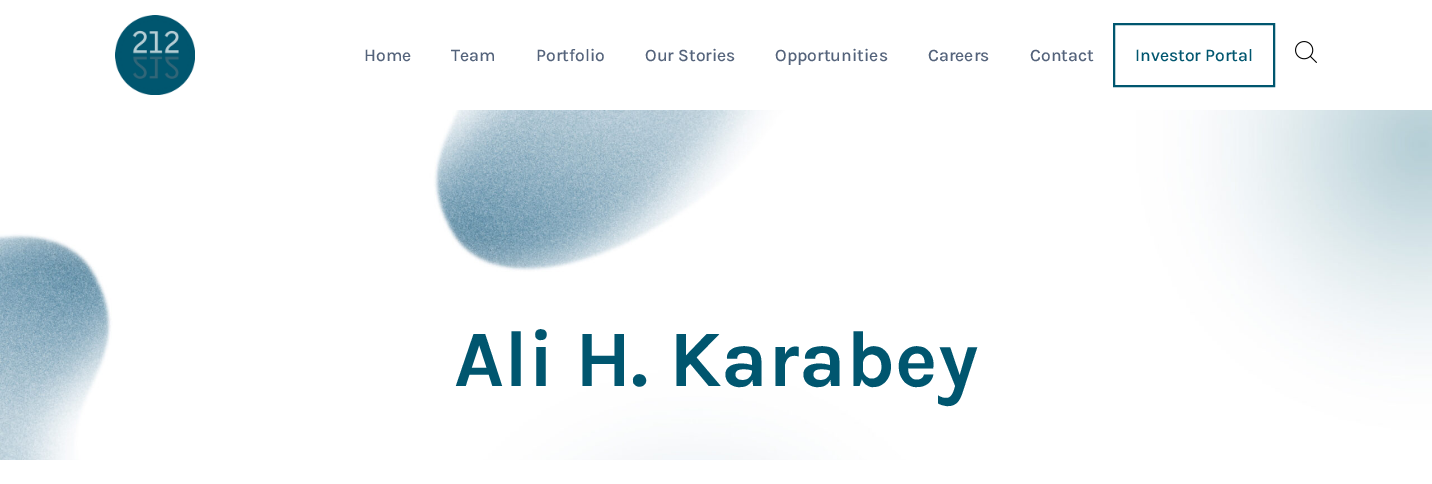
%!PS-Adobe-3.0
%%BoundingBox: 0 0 1432 484
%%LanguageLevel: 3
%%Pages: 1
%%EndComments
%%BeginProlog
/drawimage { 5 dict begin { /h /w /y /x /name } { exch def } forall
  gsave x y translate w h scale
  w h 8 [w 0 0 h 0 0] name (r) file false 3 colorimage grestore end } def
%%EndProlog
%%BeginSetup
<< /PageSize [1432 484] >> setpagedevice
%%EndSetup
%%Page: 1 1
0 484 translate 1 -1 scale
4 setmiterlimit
1 setgray
0 0 1432 484 rectfill
(images/1.raw) 115 15 80 80 drawimage
0 0.337 0.435 setrgbcolor
2 setlinewidth
1114 24 160 62 rectstroke
(images/2.raw) 1295 41 22 22 drawimage
(images/3.raw) 0 110 1432 350 drawimage
/Karla-Medium [17.5 0 0 -17.5 0 0] selectfont
0.329 0.388 0.482 setrgbcolor
364 61 moveto (Home) show
451 61 moveto (Team) show
536 61 moveto (Portfolio) show
645 61 moveto (Our Stories) show
775 61 moveto (Opportunities) show
928 61 moveto (Careers) show
1030 61 moveto (Contact) show
0 0.337 0.435 setrgbcolor
1135 61 moveto (Investor Portal) show
/Karla-Bold [80 0 0 -80 0 0] selectfont
454 386 moveto (Ali H. Karabey) show
showpage
%%EOF
